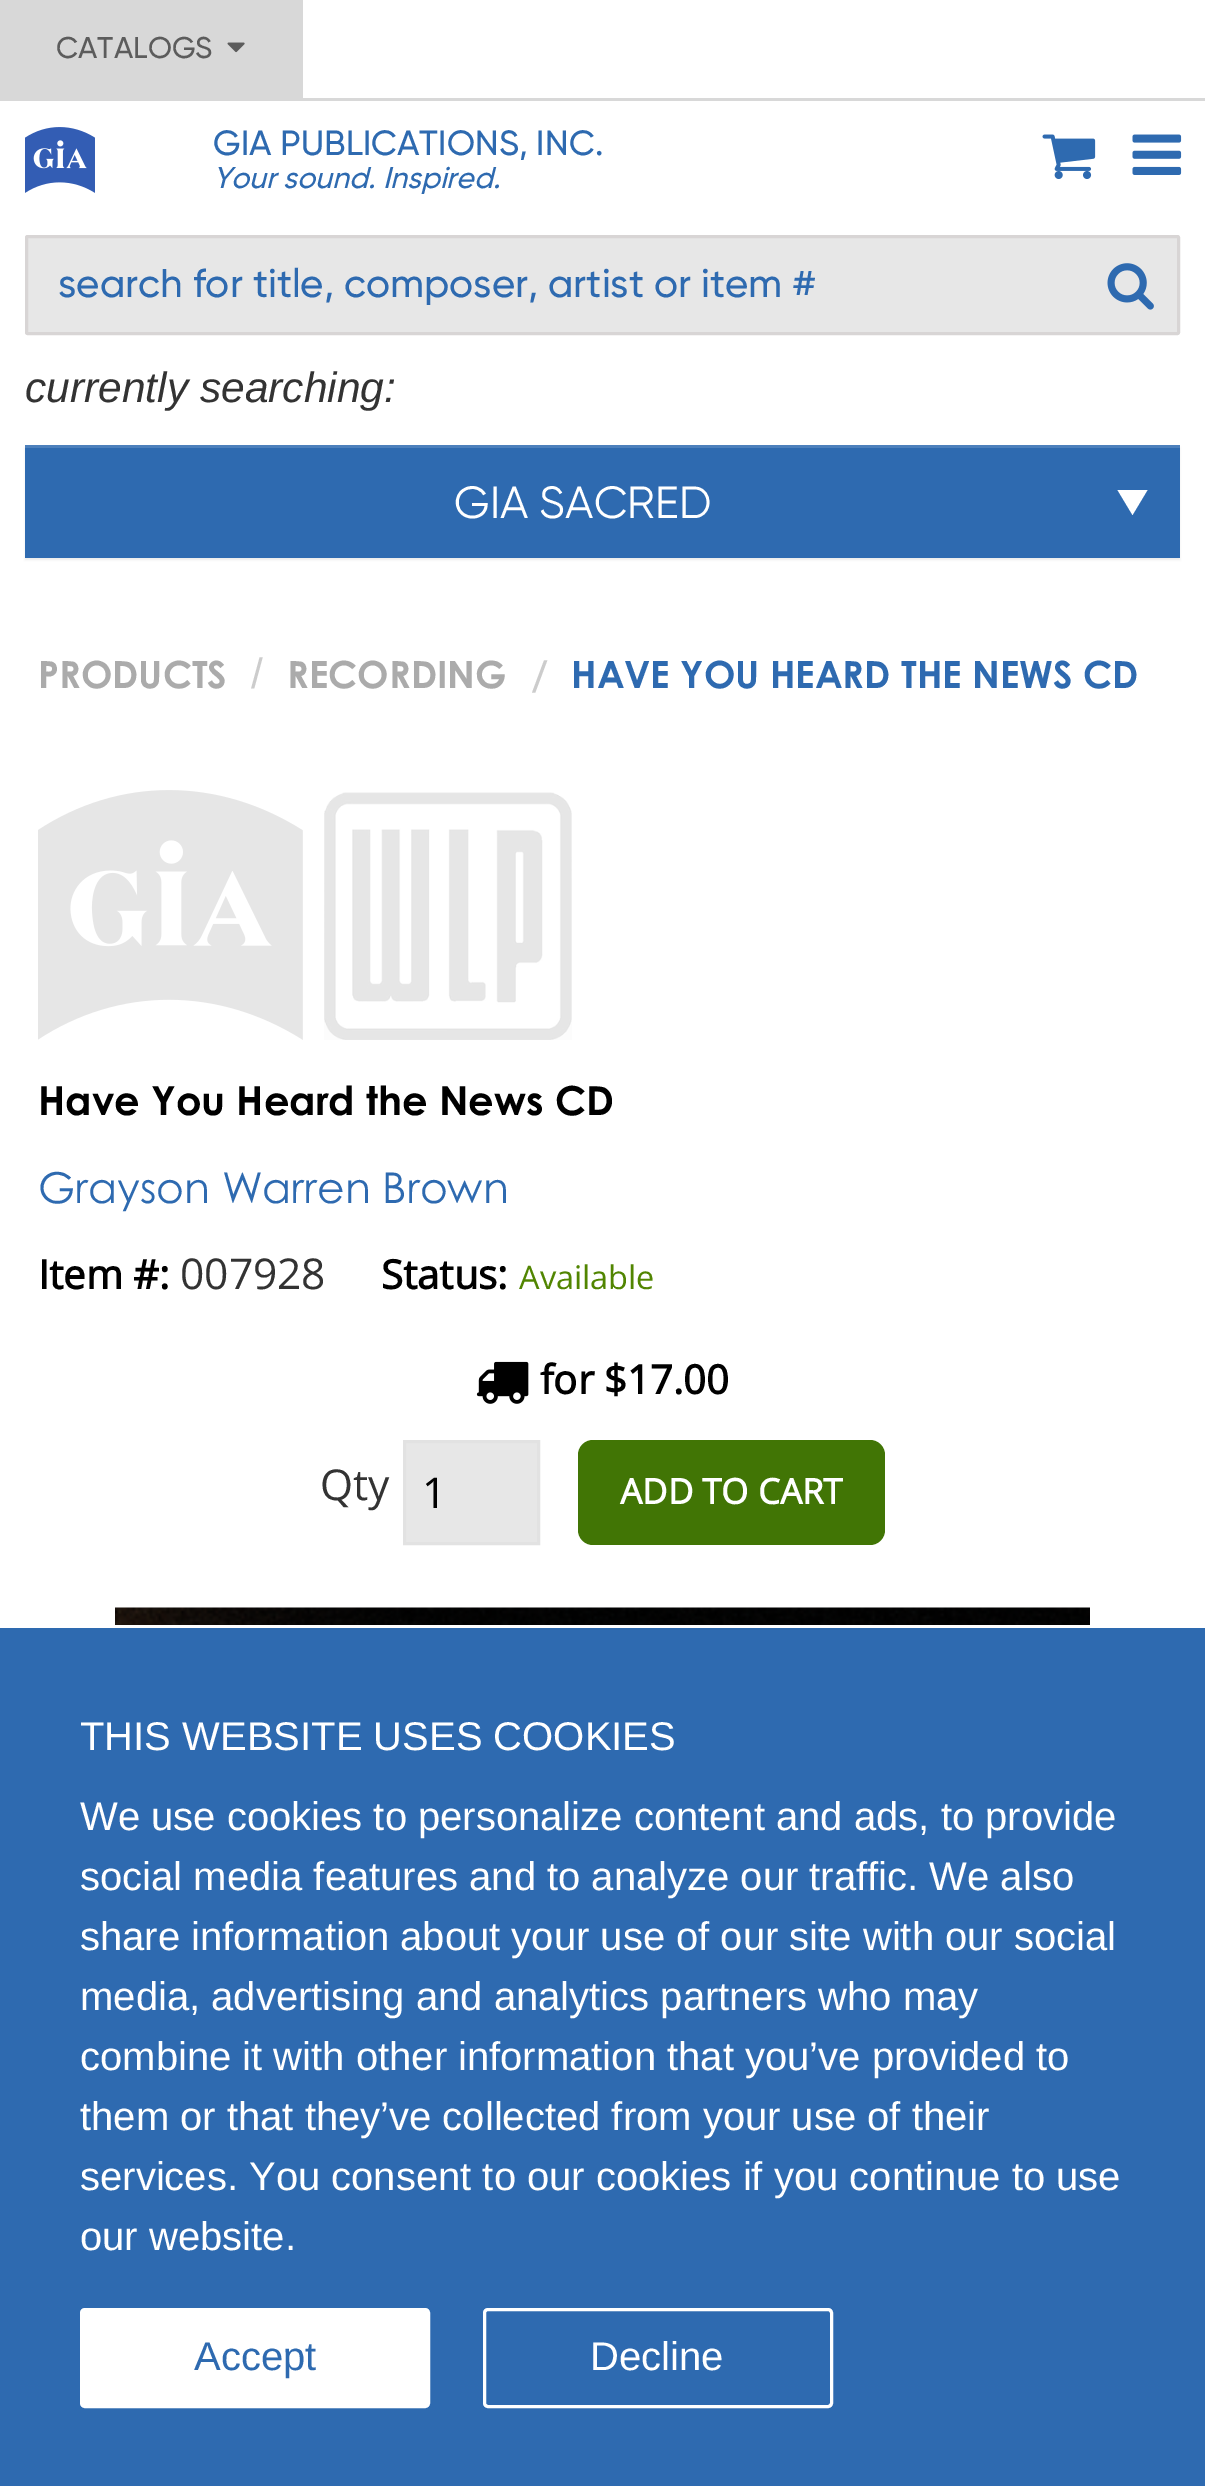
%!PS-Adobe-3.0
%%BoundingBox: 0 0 1205 2486
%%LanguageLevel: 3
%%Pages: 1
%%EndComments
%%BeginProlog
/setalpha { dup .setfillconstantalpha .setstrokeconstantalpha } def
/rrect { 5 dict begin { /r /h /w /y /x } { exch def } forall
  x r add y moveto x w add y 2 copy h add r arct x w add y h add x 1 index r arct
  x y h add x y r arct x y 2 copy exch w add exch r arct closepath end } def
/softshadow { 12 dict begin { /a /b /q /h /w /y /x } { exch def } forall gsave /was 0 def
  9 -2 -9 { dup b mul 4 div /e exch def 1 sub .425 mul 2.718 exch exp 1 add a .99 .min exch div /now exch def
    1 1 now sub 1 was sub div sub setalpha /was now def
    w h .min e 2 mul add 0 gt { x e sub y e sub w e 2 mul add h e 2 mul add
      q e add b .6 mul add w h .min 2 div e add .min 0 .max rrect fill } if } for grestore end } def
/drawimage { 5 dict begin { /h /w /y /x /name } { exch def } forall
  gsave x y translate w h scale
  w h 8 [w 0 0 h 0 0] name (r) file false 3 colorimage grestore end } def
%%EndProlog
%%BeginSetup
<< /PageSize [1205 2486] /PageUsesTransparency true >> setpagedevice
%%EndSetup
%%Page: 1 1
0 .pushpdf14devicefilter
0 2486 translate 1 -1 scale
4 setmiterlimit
1 setgray
0 0 1205 2486 rectfill
0.847 setgray
0 98 1205 3 rectfill
0 0 303 98 rectfill
(images/1.raw) 227 42 18 11 drawimage
(images/2.raw) 25 127 70 66 drawimage
(images/3.raw) 1042 134 54 45 drawimage
(images/4.raw) 1132 134 50 41 drawimage
0.906 setgray
26.5 236.5 1152 97 1 rrect gsave fill grestore
0.847 0.835 0.835 setrgbcolor
3 setlinewidth
stroke
(images/5.raw) 1107 263 47 47 drawimage
0 setgray
25 448 1155 112 0 1 0.07 softshadow
0.18 0.416 0.69 setrgbcolor
25 448 1155 110 rectfill
0.302 0.502 0.737 setrgbcolor
25 445 1155 3 rectfill
1 setgray
newpath 1117.5 490 moveto 1147.5 490 lineto 1132.5 515 lineto closepath fill
(images/6.raw) 38 790 265 250 drawimage
(images/7.raw) 324 792 248 248 drawimage
(images/8.raw) 476 1361 53 43 drawimage
0.906 setgray
newpath 404.5 1441.5 moveto 538.5 1441.5 lineto 538.5 1543.5 lineto 404.5 1543.5 lineto closepath gsave fill grestore
0.886 setgray
stroke
0.255 0.459 0.02 setrgbcolor
578 1440 307 105 15 rrect fill
(images/9.raw) 115 1607 975 18 drawimage
0.18 0.416 0.69 setrgbcolor
0 1628 1205 858 rectfill
1 setgray
81.5 2309.5 347 97 3.5 rrect gsave fill grestore
stroke
484.5 2309.5 347 97 3.5 rrect stroke
/Gilroy-Medium [30 0 0 -30 0 0] selectfont
0.361 setgray
56 58 moveto (CATALOGS) show
/Gilroy-Medium [35 0 0 -35 0 0] selectfont
0.18 0.416 0.69 setrgbcolor
213 155 moveto (GIA PUBLICATIONS, INC.) show
/Gilroy-MediumItalic [30 0 0 -30 0 0] selectfont
213 188 moveto (Your sound. Inspired.) show
/Gilroy-Medium [40 0 0 -40 0 0] selectfont
58 297 moveto (search for title, composer, artist or item #) show
/LiberationSans-Italic [42.5 0 0 -42.5 0 0] selectfont
0.2 setgray
25 402 moveto (currently searching:) show
/Gilroy-Regular [45 0 0 -45 0 0] selectfont
1 setgray
454 518 moveto (GIA SACRED) show
/CenturyGothic-Bold [37.5 0 0 -37.5 0 0] selectfont
0.671 setgray
38 688 moveto (PRODUCTS) show
/LiberationSans-Regular [42.5 0 0 -42.5 0 0] selectfont
0.8 setgray
251 688 moveto (/) show
/CenturyGothic-Bold [37.5 0 0 -37.5 0 0] selectfont
0.671 setgray
287 688 moveto (RECORDING) show
0.8 setgray
531 688 moveto (/) show
0.18 0.416 0.69 setrgbcolor
571 688 moveto (HAVE YOU HEARD THE NEWS CD) show
/CenturyGothic-Bold [40 0 0 -40 0 0] selectfont
0 setgray
38 1115 moveto (Have You Heard the News CD) show
/CenturyGothic-Regular [42.5 0 0 -42.5 0 0] selectfont
0.18 0.416 0.69 setrgbcolor
38 1203 moveto (Grayson Warren Brown) show
/OpenSans-Bold [40 0 0 -40 0 0] selectfont
0 setgray
38 1289 moveto (Item #:) show
/OpenSans-Regular [42.5 0 0 -42.5 0 0] selectfont
0.2 setgray
180 1289 moveto (007928) show
/OpenSans-Bold [40 0 0 -40 0 0] selectfont
0 setgray
381 1289 moveto (Status:) show
/OpenSans-Regular [32.5 0 0 -32.5 0 0] selectfont
0.318 0.522 0.004 setrgbcolor
519 1289 moveto (Available) show
/OpenSans-Bold [40 0 0 -40 0 0] selectfont
0 setgray
540 1394 moveto (for $17.00) show
/OpenSans-Regular [42.5 0 0 -42.5 0 0] selectfont
0.2 setgray
320 1500 moveto (Qty) show
0 setgray
422 1508 moveto (1) show
/OpenSans-Bold [35 0 0 -35 0 0] selectfont
1 setgray
620 1504 moveto (ADD TO CART) show
/LiberationSans-Regular [40 0 0 -40 0 0] selectfont
80 1750 moveto (THIS WEBSITE USES COOKIES) show
80 1830 moveto (We use cookies to personalize content and ads, to provide) show
80 1890 moveto (social media features and to analyze our traffic. We also) show
80 1950 moveto (share information about your use of our site with our social) show
80 2010 moveto (media, advertising and analytics partners who may) show
80 2070 moveto (combine it with other information that you’ve provided to) show
80 2130 moveto (them or that they’ve collected from your use of their) show
80 2190 moveto (services. You consent to our cookies if you continue to use) show
80 2250 moveto (our website.) show
0.18 0.416 0.69 setrgbcolor
194 2370 moveto (Accept) show
1 setgray
590 2370 moveto (Decline) show
.poppdf14devicefilter showpage
%%EOF
